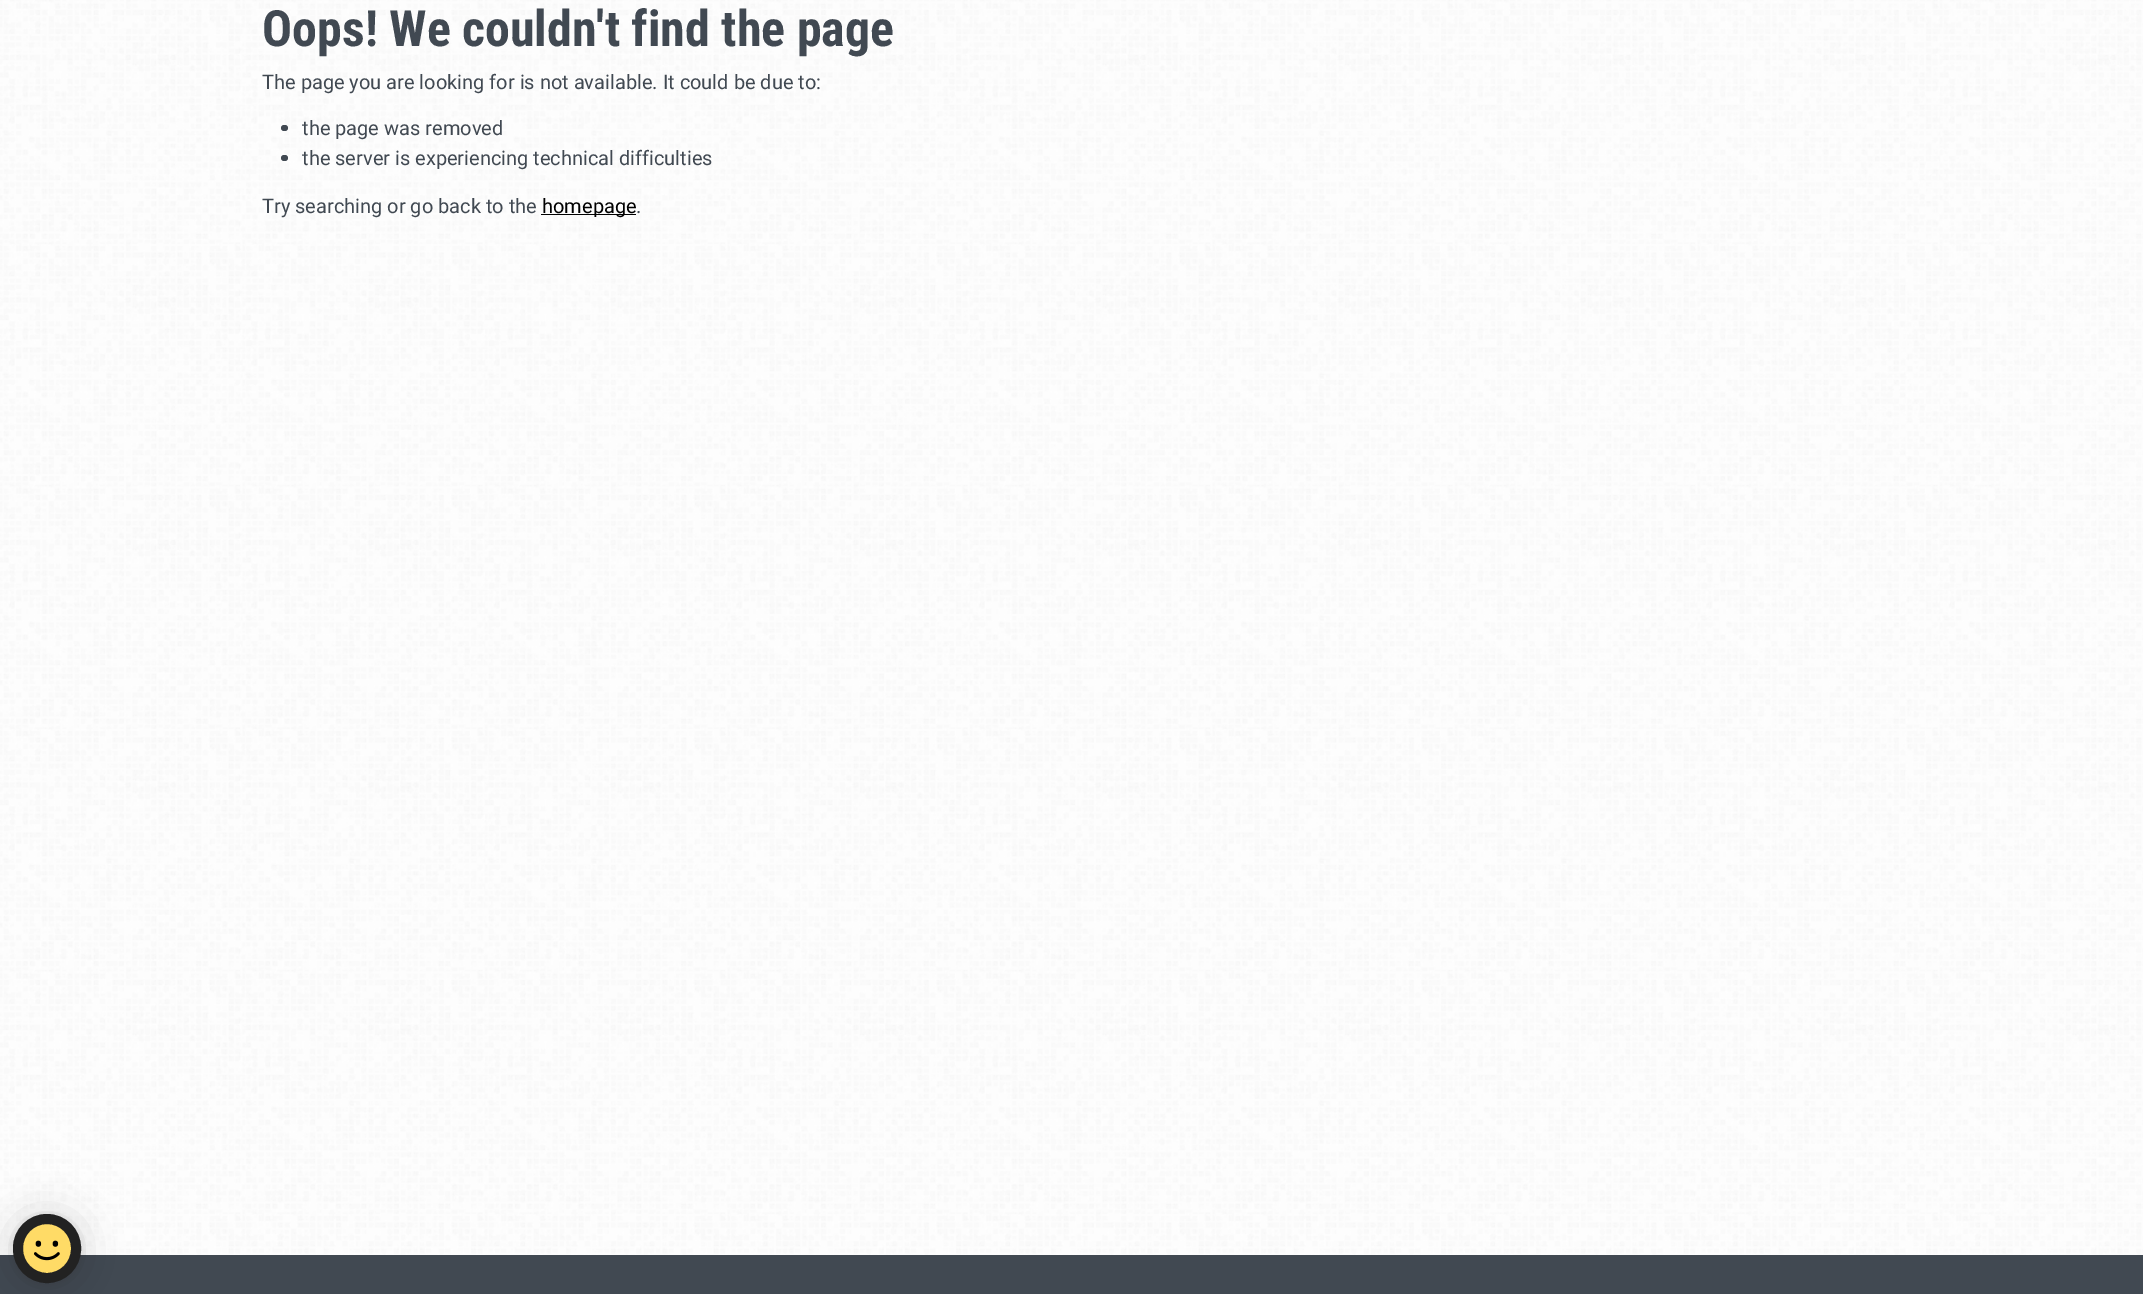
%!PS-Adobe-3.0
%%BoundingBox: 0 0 2143 1294
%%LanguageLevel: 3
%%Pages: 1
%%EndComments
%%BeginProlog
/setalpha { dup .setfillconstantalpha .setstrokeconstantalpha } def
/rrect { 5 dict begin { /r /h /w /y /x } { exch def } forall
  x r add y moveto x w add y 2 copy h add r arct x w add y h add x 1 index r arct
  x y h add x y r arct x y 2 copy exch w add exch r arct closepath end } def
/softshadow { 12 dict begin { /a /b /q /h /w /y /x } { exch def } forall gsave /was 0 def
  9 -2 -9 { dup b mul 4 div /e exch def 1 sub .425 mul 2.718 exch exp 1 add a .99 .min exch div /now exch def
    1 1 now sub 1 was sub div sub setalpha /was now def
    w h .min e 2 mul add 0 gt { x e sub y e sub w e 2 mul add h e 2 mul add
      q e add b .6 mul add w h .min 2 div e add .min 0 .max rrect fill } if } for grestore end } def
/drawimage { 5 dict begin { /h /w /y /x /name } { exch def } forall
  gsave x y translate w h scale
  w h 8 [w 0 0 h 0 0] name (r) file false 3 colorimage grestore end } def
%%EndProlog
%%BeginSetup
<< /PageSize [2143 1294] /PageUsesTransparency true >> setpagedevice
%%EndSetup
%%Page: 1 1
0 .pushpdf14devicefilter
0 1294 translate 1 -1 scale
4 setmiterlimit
1 setgray
0 0 2143 1294 rectfill
(images/1.raw) 0 0 2143 1255 drawimage
0.255 0.286 0.322 setrgbcolor
281 125 7 6 3 rrect fill
281 155 7 6 3 rrect fill
0 setgray
541 214 95 1 rectfill
0.255 0.286 0.322 setrgbcolor
0 1255 2143 39 rectfill
0 setgray
13 1216 68 69 34 20 0.16 softshadow
13 1215 68 69 34 4 0.06 softshadow
1 0.859 0.4 setrgbcolor
18 1219 58 59 29 rrect gsave fill grestore
0.133 setgray
10 setlinewidth
stroke
(images/2.raw) 34 1240 26 21 drawimage
/RobotoCondensed-Bold [50 0 0 -50 0 0] selectfont
0.255 0.286 0.322 setrgbcolor
262 46 moveto (Oops! We couldn't find the page) show
/Roboto-Regular [20 0 0 -20 0 0] selectfont
262 89 moveto (The page you are looking for is not available. It could be due to:) show
302 135 moveto (the page was removed) show
302 165 moveto (the server is experiencing technical difficulties) show
262 213 moveto (Try searching or go back to the) show
0 setgray
542 213 moveto (homepage) show
0.255 0.286 0.322 setrgbcolor
636 213 moveto (.) show
.poppdf14devicefilter showpage
%%EOF
